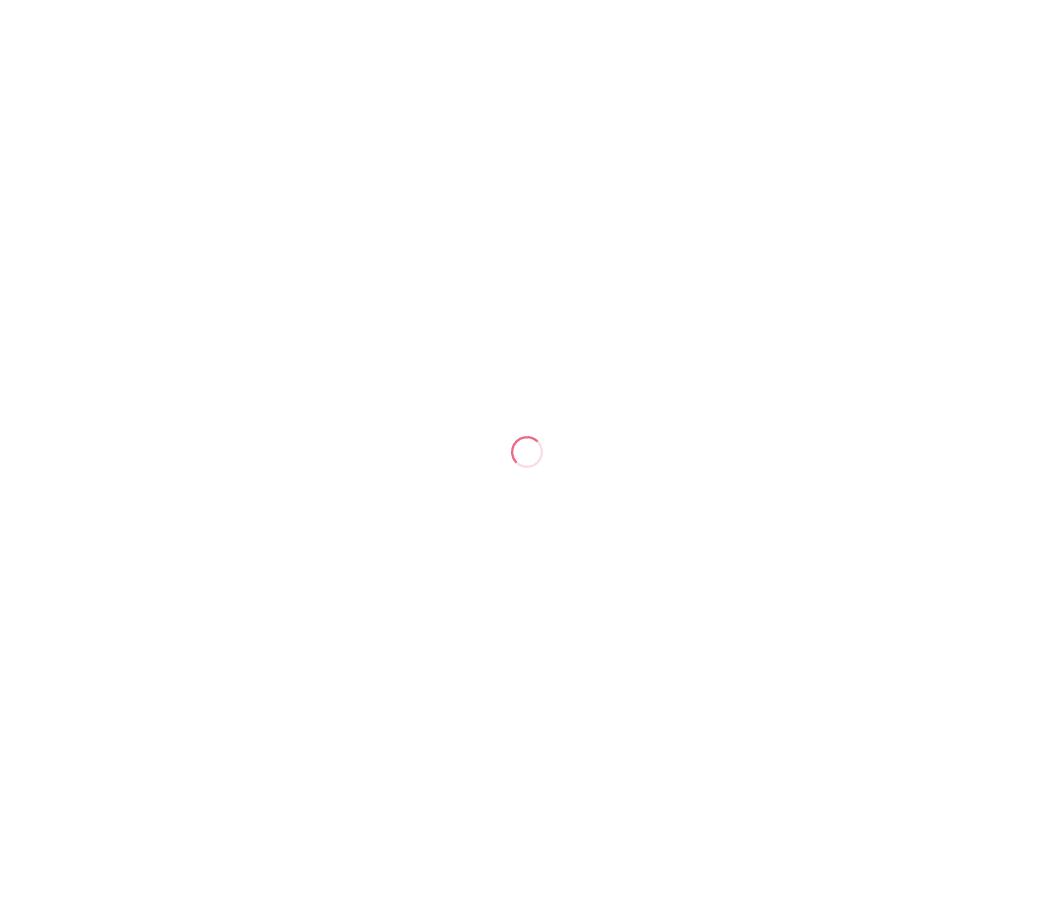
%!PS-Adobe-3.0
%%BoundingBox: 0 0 1053 903
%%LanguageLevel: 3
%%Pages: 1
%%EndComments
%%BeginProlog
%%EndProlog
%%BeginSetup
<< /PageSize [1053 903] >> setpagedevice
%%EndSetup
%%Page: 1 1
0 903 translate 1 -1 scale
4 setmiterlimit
1 setgray
0 0 1053 903 rectfill
0.984 0.863 0.89 setrgbcolor
2 setlinewidth
newpath 537.5 441.5 moveto 548 452 538.5 469.5 524 466.5 curveto 521 466 518.5 464.5 516.5 462.5 curveto stroke
0.925 0.408 0.522 setrgbcolor
newpath 516.5 462.5 moveto 506 452 515.5 434.5 530 437.5 curveto 533 438 535.5 439.5 537.5 441.5 curveto stroke
showpage
%%EOF
